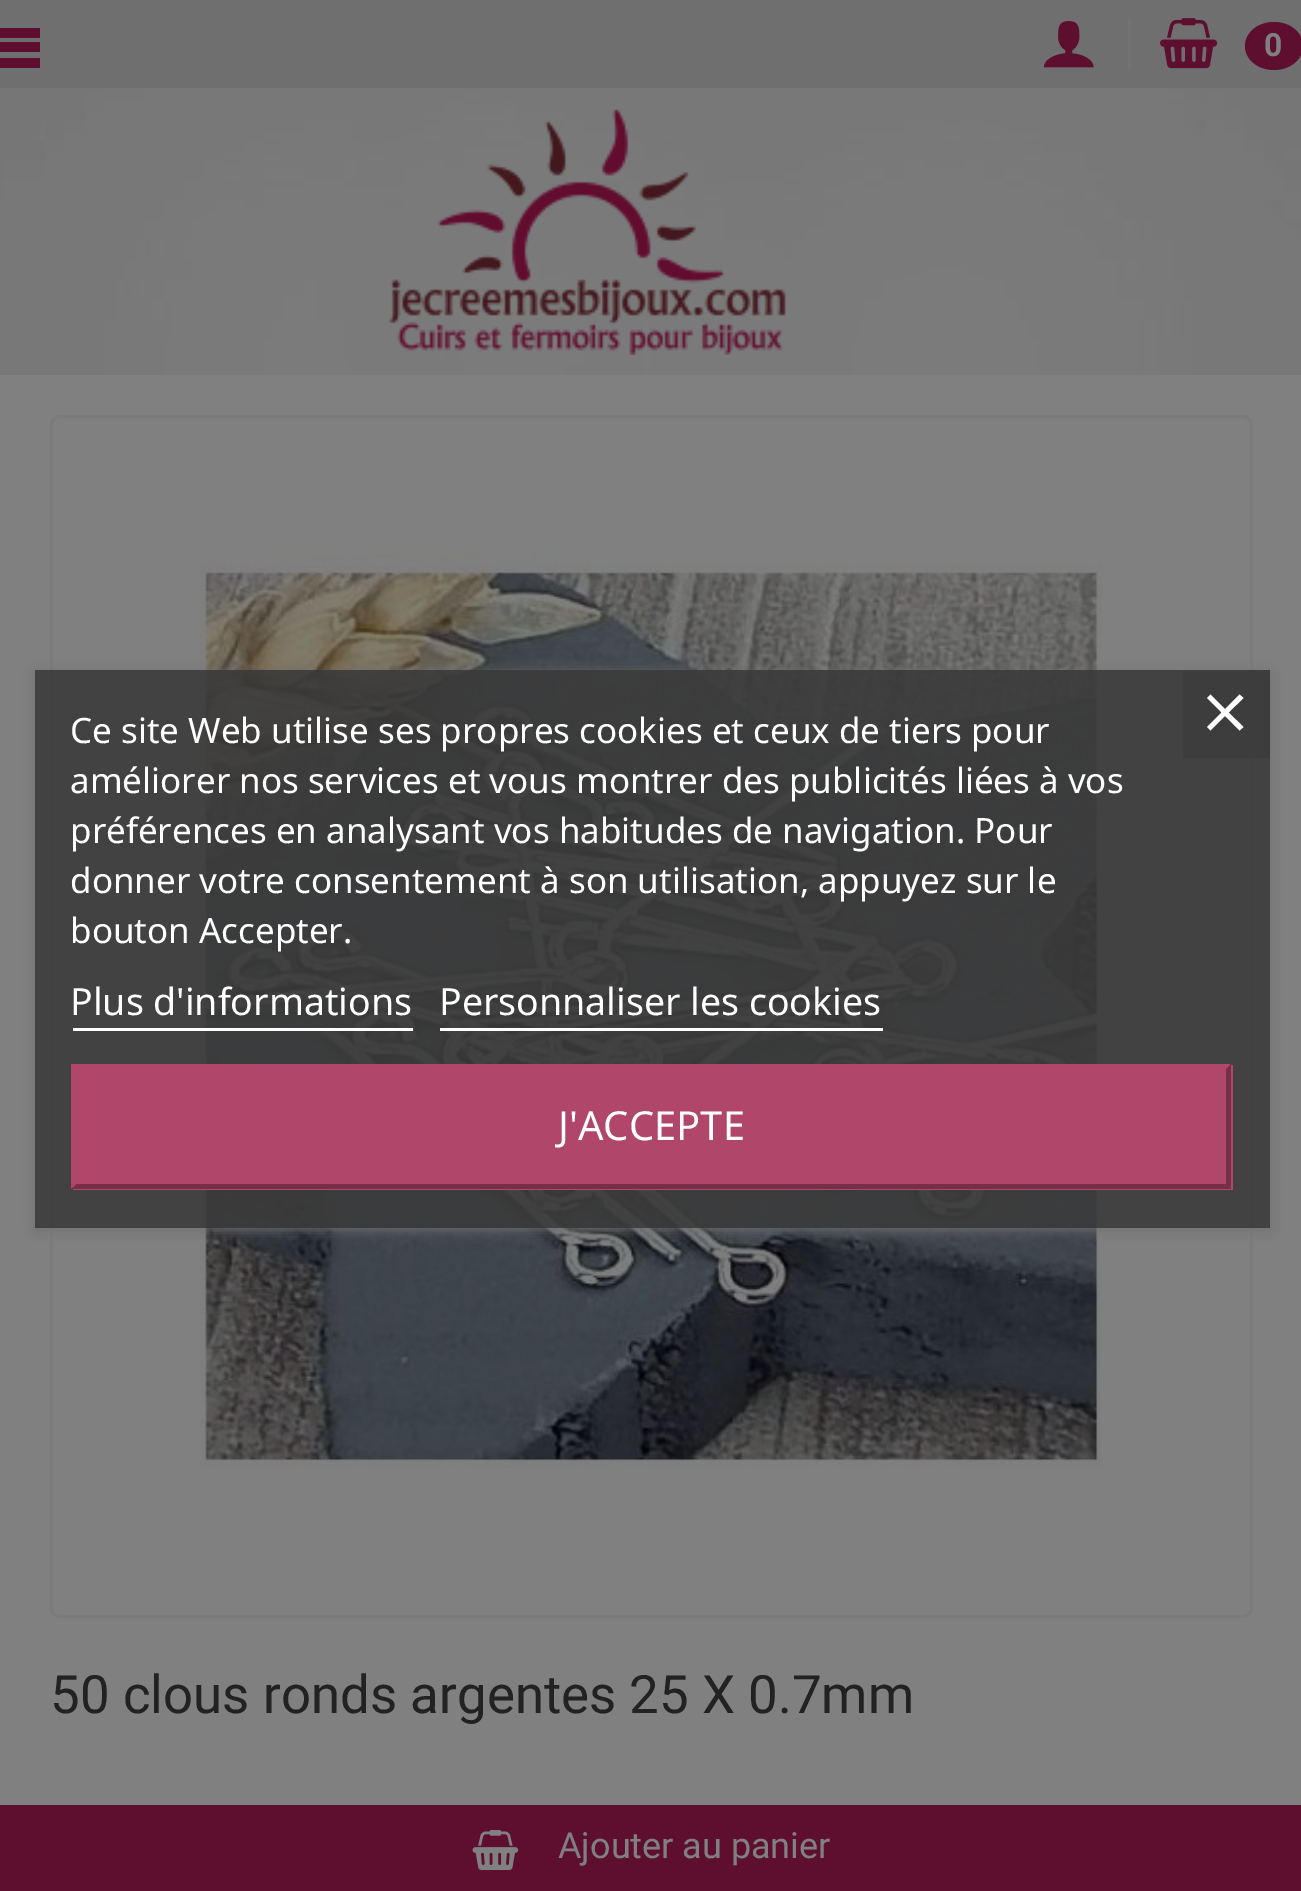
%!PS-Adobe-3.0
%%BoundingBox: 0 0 1301 1891
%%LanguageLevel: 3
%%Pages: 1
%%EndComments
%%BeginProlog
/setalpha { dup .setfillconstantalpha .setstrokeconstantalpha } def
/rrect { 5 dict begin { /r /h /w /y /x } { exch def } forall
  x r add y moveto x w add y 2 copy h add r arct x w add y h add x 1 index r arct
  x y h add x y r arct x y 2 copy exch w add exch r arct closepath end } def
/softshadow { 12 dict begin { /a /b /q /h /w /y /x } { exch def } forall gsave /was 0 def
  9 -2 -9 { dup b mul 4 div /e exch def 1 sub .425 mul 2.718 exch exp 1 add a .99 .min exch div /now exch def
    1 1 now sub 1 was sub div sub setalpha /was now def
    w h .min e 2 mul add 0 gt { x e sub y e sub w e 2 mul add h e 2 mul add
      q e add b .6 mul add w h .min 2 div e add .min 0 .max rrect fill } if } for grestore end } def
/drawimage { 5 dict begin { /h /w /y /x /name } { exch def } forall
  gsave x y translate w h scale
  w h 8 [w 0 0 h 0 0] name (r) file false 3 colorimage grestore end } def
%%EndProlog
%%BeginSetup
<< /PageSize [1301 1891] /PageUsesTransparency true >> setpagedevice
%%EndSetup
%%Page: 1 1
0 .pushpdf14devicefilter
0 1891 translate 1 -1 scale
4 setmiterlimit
1 setgray
0 0 1301 1891 rectfill
(images/1.raw) 0 88 1301 287 drawimage
0.435 setgray
0 0 1301 88 rectfill
0.369 0.059 0.184 setrgbcolor
newpath 0 28 moveto 0 38 lineto 40 38 lineto 40 28 lineto closepath 0 52 moveto 40 52 lineto 40 42 lineto 0 42 lineto closepath 0 68 moveto 40 68 lineto 40 58 lineto 0 58 lineto closepath fill
(images/2.raw) 1043 21 51 47 drawimage
0.447 setgray
1128 18 3 52 rectfill
(images/3.raw) 1160 18 58 51 drawimage
0.369 0.059 0.184 setrgbcolor
newpath 1274 22 moveto 1290 22 1303 32.5 1303 46 curveto 1303 59.5 1290 70 1274 70 curveto 1258 70 1245 59.5 1245 46 curveto 1245 32.5 1258 22 1274 22 curveto closepath fill
(images/4.raw) 389 109 397 246 drawimage
0.502 setgray
0 375 1301 1430 rectfill
0.482 setgray
3 setlinewidth
51.5 416.5 1200 1200 8.5 rrect stroke
(images/5.raw) 200 553 902 915 drawimage
gsave
newpath 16 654 moveto 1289 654 lineto 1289 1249 lineto 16 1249 lineto closepath 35 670 moveto 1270 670 lineto 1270 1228 lineto 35 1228 lineto closepath eoclip newpath
0.439 setgray
35 673 1235 557 0 6 1 softshadow
grestore
0.9 setalpha
0.231 setgray
35 670 1235 558 rectfill
1 setalpha
1 setgray
73 1028 340 3 rectfill
440 1028 443 3 rectfill
0.694 0.275 0.42 setrgbcolor
73 1065 1160 125 rectfill
newpath 71 1064 moveto 1231 1064 lineto 1226 1069 lineto 76 1069 lineto closepath fill
0.463 0.184 0.278 setrgbcolor
newpath 1231 1064 moveto 1231 1189 lineto 1226 1184 lineto 1226 1069 lineto closepath fill
newpath 1231 1189 moveto 71 1189 lineto 76 1184 lineto 1226 1184 lineto closepath fill
0.694 0.275 0.42 setrgbcolor
newpath 71 1189 moveto 71 1064 lineto 76 1069 lineto 76 1184 lineto closepath fill
0.239 setgray
1183 670 87 88 rectfill
1 setgray
newpath 1243.5 698 moveto 1239.5 694.5 lineto 1225 709 lineto 1210.5 694.5 lineto 1207 698 lineto 1221.5 712.5 lineto 1207 727 lineto 1210.5 730.5 lineto 1225 716 lineto 1239.5 730.5 lineto 1243.5 727 lineto 1228.5 712.5 lineto closepath fill
0.369 0.059 0.184 setrgbcolor
0 1805 1301 86 rectfill
(images/6.raw) 472 1830 47 40 drawimage
/Roboto-Bold [32 0 0 -32 0 0] selectfont
0.502 setgray
1264 56 moveto (0) show
/NotoSans-Regular [35 0 0 -35 0 0] selectfont
1 setgray
70 743 moveto (Ce site Web utilise ses propres cookies et ceux de tiers pour) show
70 793 moveto (améliorer nos services et vous montrer des publicités liées à vos) show
70 843 moveto (préférences en analysant vos habitudes de navigation. Pour) show
70 893 moveto (donner votre consentement à son utilisation, appuyez sur le) show
70 943 moveto (bouton Accepter.) show
/NotoSans-Regular [37.5 0 0 -37.5 0 0] selectfont
70 1015 moveto (Plus d'informations) show
439 1015 moveto (Personnaliser les cookies) show
/NotoSans-Regular [40 0 0 -40 0 0] selectfont
558 1140 moveto (J'ACCEPTE) show
/Roboto-Regular [52.9 0 0 -52.9 0 0] selectfont
0.133 setgray
50 1713 moveto (50 clous ronds argentes 25 X 0.7mm) show
/Roboto-Regular [36 0 0 -36 0 0] selectfont
0.502 setgray
558 1858 moveto (Ajouter au panier) show
.poppdf14devicefilter showpage
%%EOF
